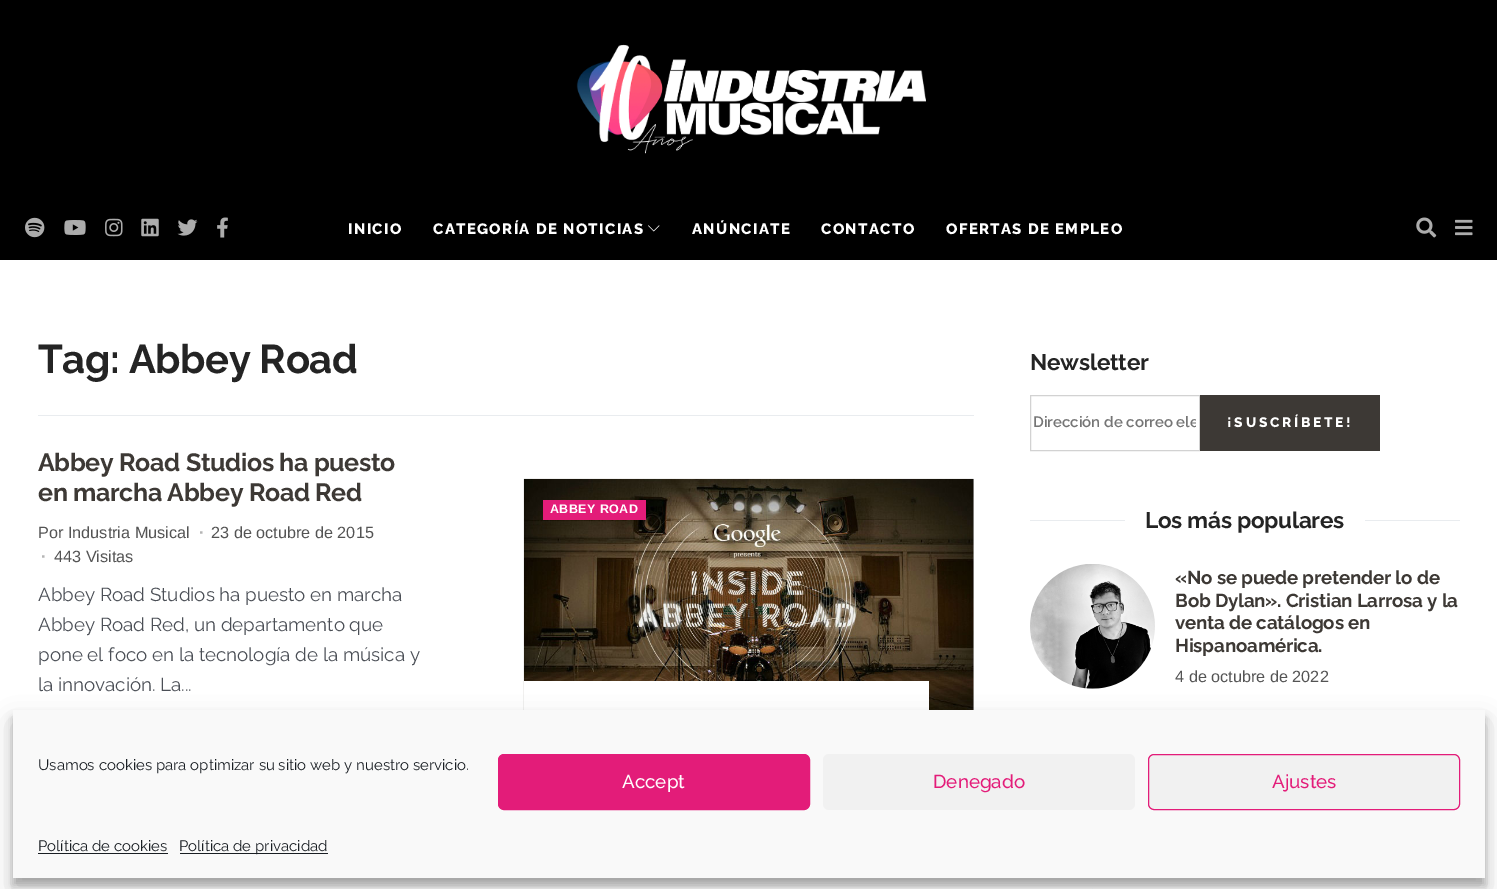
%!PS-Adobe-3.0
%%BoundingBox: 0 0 1497 889
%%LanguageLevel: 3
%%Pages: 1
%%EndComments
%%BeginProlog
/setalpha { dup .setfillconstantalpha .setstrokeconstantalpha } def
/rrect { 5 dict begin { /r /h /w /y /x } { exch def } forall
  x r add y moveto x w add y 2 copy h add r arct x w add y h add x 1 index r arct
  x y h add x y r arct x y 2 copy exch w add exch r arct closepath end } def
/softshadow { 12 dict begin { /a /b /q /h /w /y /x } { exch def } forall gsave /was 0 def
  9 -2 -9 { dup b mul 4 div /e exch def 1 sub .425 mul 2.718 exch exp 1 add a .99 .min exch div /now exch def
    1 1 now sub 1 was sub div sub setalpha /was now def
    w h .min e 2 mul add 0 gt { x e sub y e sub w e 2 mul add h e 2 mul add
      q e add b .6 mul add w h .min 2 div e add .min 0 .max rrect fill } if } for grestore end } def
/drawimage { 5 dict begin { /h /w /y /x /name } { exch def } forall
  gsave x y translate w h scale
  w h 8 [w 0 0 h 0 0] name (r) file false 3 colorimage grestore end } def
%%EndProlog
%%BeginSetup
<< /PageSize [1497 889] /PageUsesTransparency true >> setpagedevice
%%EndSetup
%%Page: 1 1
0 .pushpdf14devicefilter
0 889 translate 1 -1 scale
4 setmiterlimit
1 setgray
0 0 1497 889 rectfill
0 setgray
0 0 1497 260 rectfill
(images/1.raw) 576 44 350 110 drawimage
(images/2.raw) 25 217 20 21 drawimage
(images/3.raw) 64 220 22 15 drawimage
(images/4.raw) 105 218 18 19 drawimage
(images/5.raw) 141 218 18 19 drawimage
(images/6.raw) 177 219 21 17 drawimage
(images/7.raw) 217 217 11 21 drawimage
(images/8.raw) 648 225 12 7 drawimage
(images/9.raw) 1416 217 21 21 drawimage
(images/10.raw) 1455 219 18 17 drawimage
0.914 0.925 0.937 setrgbcolor
38 415 936 1 rectfill
(images/11.raw) 523 478 451 232 drawimage
0.89 0.11 0.475 setrgbcolor
543 500 103 20 rectfill
1 setgray
524 681 405 29 rectfill
0.824 setgray
1030.5 395.5 169 55 rectstroke
0.239 0.224 0.208 setrgbcolor
1200 395 180 56 rectfill
0.914 0.925 0.937 setrgbcolor
1030 520 95 1 rectfill
1365 520 95 1 rectfill
(images/12.raw) 1030 564 125 125 drawimage
0.984 0.992 0.996 setrgbcolor
1092 888 1 1 rectfill
0 setgray
13 718 1472 167 0 4 0.23 softshadow
13 723 1472 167 0 12.5 0.19 softshadow
0.976 setgray
13 710 1472 168 rectfill
0.89 0.11 0.475 setrgbcolor
498.5 754.5 311 55 5.5 rrect gsave fill grestore
stroke
0.945 setgray
823 754 312 56 6 rrect fill
1148.5 754.5 311 55 5.5 rrect gsave fill grestore
0.89 0.11 0.475 setrgbcolor
stroke
0.098 0.118 0.137 setrgbcolor
38 853 130 1 rectfill
180 853 148 1 rectfill
/Raleway-ExtraBold [15 0 0 -15 0 0] selectfont
1 setgray
348 234 moveto 1.35 0 (INICIO) ashow
433 234 moveto 1.35 0 (CATEGORÍA DE NOTICIAS) ashow
692 234 moveto 1.35 0 (ANÚNCIATE) ashow
821 234 moveto 1.35 0 (CONTACTO) ashow
946 234 moveto 1.35 0 (OFERTAS DE EMPLEO) ashow
/Raleway-Bold [40 0 0 -40 0 0] selectfont
0.141 setgray
38 373 moveto -0.4 0 (Tag: Abbey Road) ashow
/Raleway-Bold [25 0 0 -25 0 0] selectfont
0.239 0.224 0.208 setrgbcolor
38 471 moveto -0.35 0 (Abbey Road Studios ha puesto) ashow
38 501 moveto -0.35 0 (en marcha Abbey Road Red) ashow
/LiberationSans-Regular [16.25 0 0 -16.25 0 0] selectfont
0.329 setgray
38 538 moveto (Por Industria Musical) show
/LiberationSans-Bold [16.25 0 0 -16.25 0 0] selectfont
0.71 setgray
199 538 moveto (·) show
/LiberationSans-Regular [16.25 0 0 -16.25 0 0] selectfont
0.329 setgray
211 538 moveto (23 de octubre de 2015) show
/LiberationSans-Bold [16.25 0 0 -16.25 0 0] selectfont
0.71 setgray
41 562 moveto (·) show
/LiberationSans-Regular [16.25 0 0 -16.25 0 0] selectfont
0.329 setgray
54 562 moveto (443 Visitas) show
/Raleway-Regular [18.75 0 0 -18.75 0 0] selectfont
0.294 0.31 0.337 setrgbcolor
38 601 moveto (Abbey Road Studios ha puesto en marcha) show
38 631 moveto (Abbey Road Red, un departamento que) show
38 661 moveto (pone el foco en la tecnología de la música y) show
38 691 moveto (la innovación. La...) show
/LiberationSans-Bold [12.5 0 0 -12.5 0 0] selectfont
1 setgray
550 513 moveto 0.4 0 (ABBEY ROAD) ashow
/Raleway-Bold [22.5 0 0 -22.5 0 0] selectfont
0.141 setgray
1030 370 moveto -0.25 0 (Newsletter) ashow
gsave
1034 414 162 17 rectclip
/Raleway-SemiBold [15 0 0 -15 0 0] selectfont
0.459 setgray
1033 427 moveto (Dirección de correo ele) show
grestore
/Raleway-ExtraBold [13.75 0 0 -13.75 0 0] selectfont
1 setgray
1227 427 moveto 2.75 0 (¡SUSCRÍBETE!) ashow
/Raleway-Bold [22.5 0 0 -22.5 0 0] selectfont
0.141 setgray
1145 528 moveto -0.25 0 (Los más populares) ashow
/Raleway-Bold [18.75 0 0 -18.75 0 0] selectfont
0.239 0.224 0.208 setrgbcolor
1175 584 moveto -0.2 0 («No se puede pretender lo de) ashow
1175 607 moveto -0.2 0 (Bob Dylan». Cristian Larrosa y la) ashow
1175 629 moveto -0.2 0 (venta de catálogos en) ashow
1175 652 moveto -0.2 0 (Hispanoamérica.) ashow
/LiberationSans-Regular [16.25 0 0 -16.25 0 0] selectfont
0.329 setgray
1175 682 moveto (4 de octubre de 2022) show
/Raleway-Regular [15 0 0 -15 0 0] selectfont
0.098 0.118 0.137 setrgbcolor
38 770 moveto (Usamos cookies para optimizar su sitio web y nuestro servicio.) show
/Raleway-Medium [18.75 0 0 -18.75 0 0] selectfont
1 setgray
622 788 moveto (Accept) show
0.89 0.11 0.475 setrgbcolor
933 788 moveto (Denegado) show
1272 788 moveto (Ajustes) show
/Raleway-Regular [15 0 0 -15 0 0] selectfont
0.098 0.118 0.137 setrgbcolor
38 851 moveto (Política de cookies) show
179 851 moveto (Política de privacidad) show
.poppdf14devicefilter showpage
%%EOF
